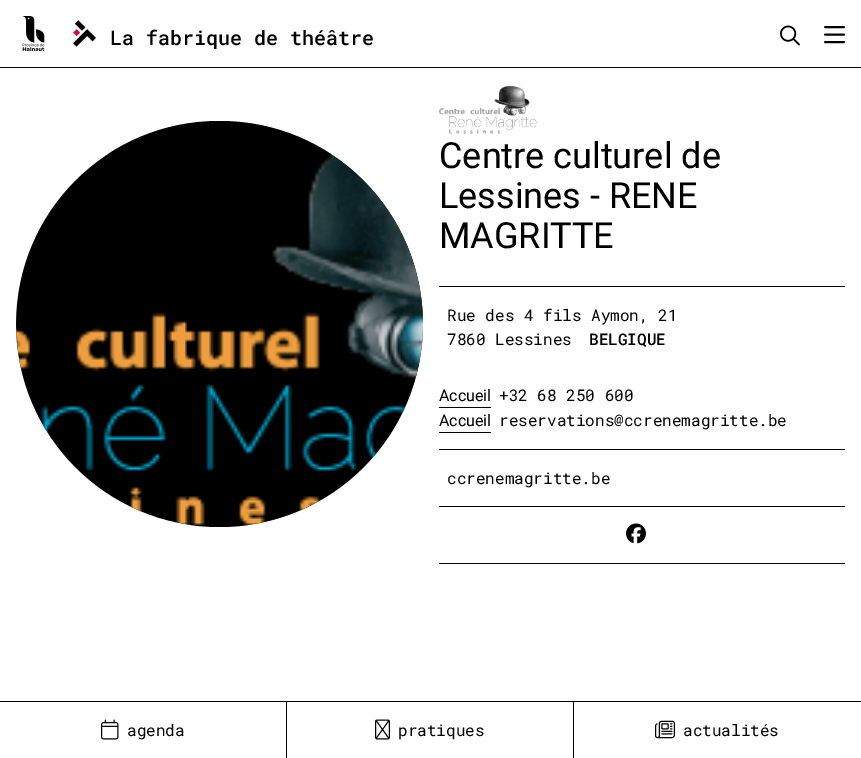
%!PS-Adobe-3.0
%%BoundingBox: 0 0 861 758
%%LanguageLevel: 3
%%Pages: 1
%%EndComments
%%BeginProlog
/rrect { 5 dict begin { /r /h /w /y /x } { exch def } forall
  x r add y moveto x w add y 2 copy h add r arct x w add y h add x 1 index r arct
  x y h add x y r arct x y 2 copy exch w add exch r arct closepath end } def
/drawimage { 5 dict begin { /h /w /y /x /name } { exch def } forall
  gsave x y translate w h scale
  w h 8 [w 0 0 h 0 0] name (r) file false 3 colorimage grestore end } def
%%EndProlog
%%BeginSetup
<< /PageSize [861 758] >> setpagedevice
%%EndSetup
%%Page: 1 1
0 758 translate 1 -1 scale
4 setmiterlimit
1 setgray
0 0 861 758 rectfill
0 setgray
0 67 861 1 rectfill
(images/1.raw) 22 16 23 35 drawimage
(images/2.raw) 73 20 23 27 drawimage
(images/3.raw) 780 25 20 21 drawimage
(images/4.raw) 824 26 21 18 drawimage
16 121 407 406 203 rrect fill
(images/5.raw) 16 154 407 371 drawimage
(images/6.raw) 439 85 98 49 drawimage
439 286 406 1 rectfill
439 449 406 1 rectfill
439 407 52 1 rectfill
439 432 52 1 rectfill
439 506 406 1 rectfill
439 563 406 1 rectfill
(images/7.raw) 626 523 20 21 drawimage
0 701 861 1 rectfill
286 702 1 56 rectfill
(images/8.raw) 101 719 18 21 drawimage
573 702 1 56 rectfill
(images/9.raw) 375 719 15 21 drawimage
(images/10.raw) 655 720 20 19 drawimage
/RobotoMono-Medium [20 0 0 -20 0 0] selectfont
110 45 moveto (La fabrique de théâtre) show
/Roboto-Regular [36 0 0 -36 0 0] selectfont
439 168 moveto (Centre culturel de) show
439 208 moveto (Lessines - RENE) show
439 248 moveto (MAGRITTE) show
/RobotoMono-Regular [16 0 0 -16 0 0] selectfont
447 321 moveto (Rue des 4 fils Aymon, 21) show
447 345 moveto (7860 Lessines) show
/RobotoMono-Medium [16 0 0 -16 0 0] selectfont
589 345 moveto (BELGIQUE) show
/Roboto-Regular [16 0 0 -16 0 0] selectfont
439 401 moveto (Accueil) show
/RobotoMono-Regular [16 0 0 -16 0 0] selectfont
499 401 moveto (+32 68 250 600) show
/Roboto-Regular [16 0 0 -16 0 0] selectfont
439 426 moveto (Accueil) show
/RobotoMono-Regular [16 0 0 -16 0 0] selectfont
499 426 moveto (reservations@ccrenemagritte.be) show
447 484 moveto (ccrenemagritte.be) show
127 736 moveto (agenda) show
398 736 moveto (pratiques) show
683 736 moveto (actualités) show
showpage
%%EOF
